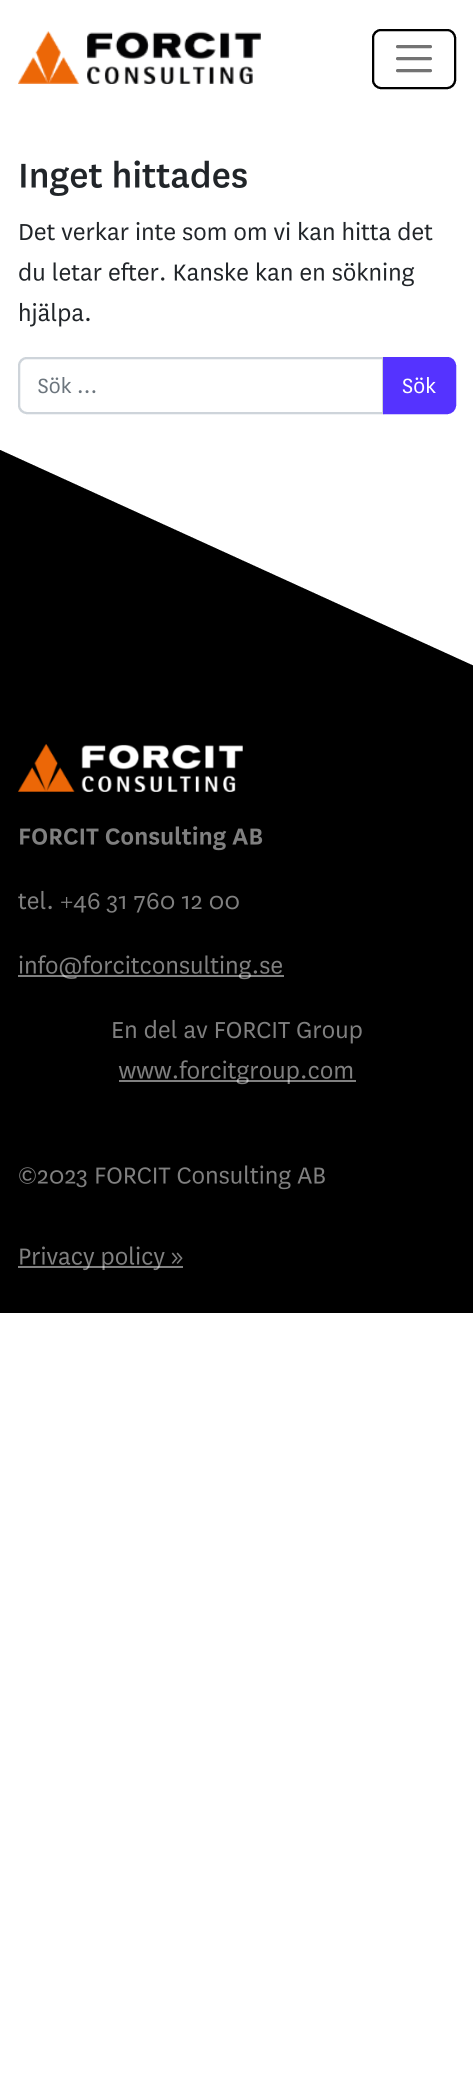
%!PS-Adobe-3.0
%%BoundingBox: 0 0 473 2094
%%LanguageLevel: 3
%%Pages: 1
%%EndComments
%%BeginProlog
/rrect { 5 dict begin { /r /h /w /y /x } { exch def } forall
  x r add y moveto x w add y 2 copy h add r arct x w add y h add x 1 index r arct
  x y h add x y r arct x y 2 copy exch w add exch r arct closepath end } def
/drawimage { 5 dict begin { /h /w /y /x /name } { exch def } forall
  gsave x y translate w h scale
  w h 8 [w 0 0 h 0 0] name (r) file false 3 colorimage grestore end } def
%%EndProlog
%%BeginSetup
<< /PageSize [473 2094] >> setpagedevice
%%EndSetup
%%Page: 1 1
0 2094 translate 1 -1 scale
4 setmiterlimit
1 setgray
0 0 473 2094 rectfill
(images/1.raw) 18 31 243 53 drawimage
0 setgray
2 setlinewidth
373 30 82 58 8 rrect stroke
0.451 setgray
3 setlinewidth
1 setlinecap
newpath 397.5 46.5 moveto 430.5 46.5 lineto 397.5 58.5 moveto 430.5 58.5 lineto 397.5 70.5 moveto 430.5 70.5 lineto stroke
(images/2.raw) 21 160 226 36 drawimage
(images/3.raw) 20 221 413 20 drawimage
(images/4.raw) 19 262 396 25 drawimage
(images/5.raw) 20 302 70 25 drawimage
0.808 0.831 0.855 setrgbcolor
2 setlinewidth
0 setlinecap
newpath 27 358 moveto 383 358 lineto 383 413 lineto 27 413 lineto 22.5 413 19 409.5 19 405 curveto 19 366 lineto 19 361.5 22.5 358 27 358 curveto closepath stroke
(images/6.raw) 38 377 58 17 drawimage
0.333 0.2 1 setrgbcolor
newpath 384 358 moveto 447 358 lineto 451.5 358 455 361.5 455 366 curveto 455 405 lineto 455 409.5 451.5 413 447 413 curveto 384 413 lineto closepath gsave fill grestore
stroke
(images/7.raw) 402 377 34 17 drawimage
0 setgray
newpath 0 450 moveto 0 1313 lineto 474 1313 lineto 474 666 lineto closepath fill
(images/8.raw) 18 744 225 48 drawimage
(images/9.raw) 20 826 243 25 drawimage
(images/10.raw) 18 890 221 23 drawimage
0.502 setgray
18 975 266 2 rectfill
(images/11.raw) 19 955 263 25 drawimage
(images/12.raw) 113 1019 249 25 drawimage
119 1080 237 2 rectfill
(images/13.raw) 118 1060 235 25 drawimage
(images/14.raw) 19 1165 306 25 drawimage
18 1266 165 2 rectfill
(images/15.raw) 20 1246 163 25 drawimage
showpage
%%EOF
